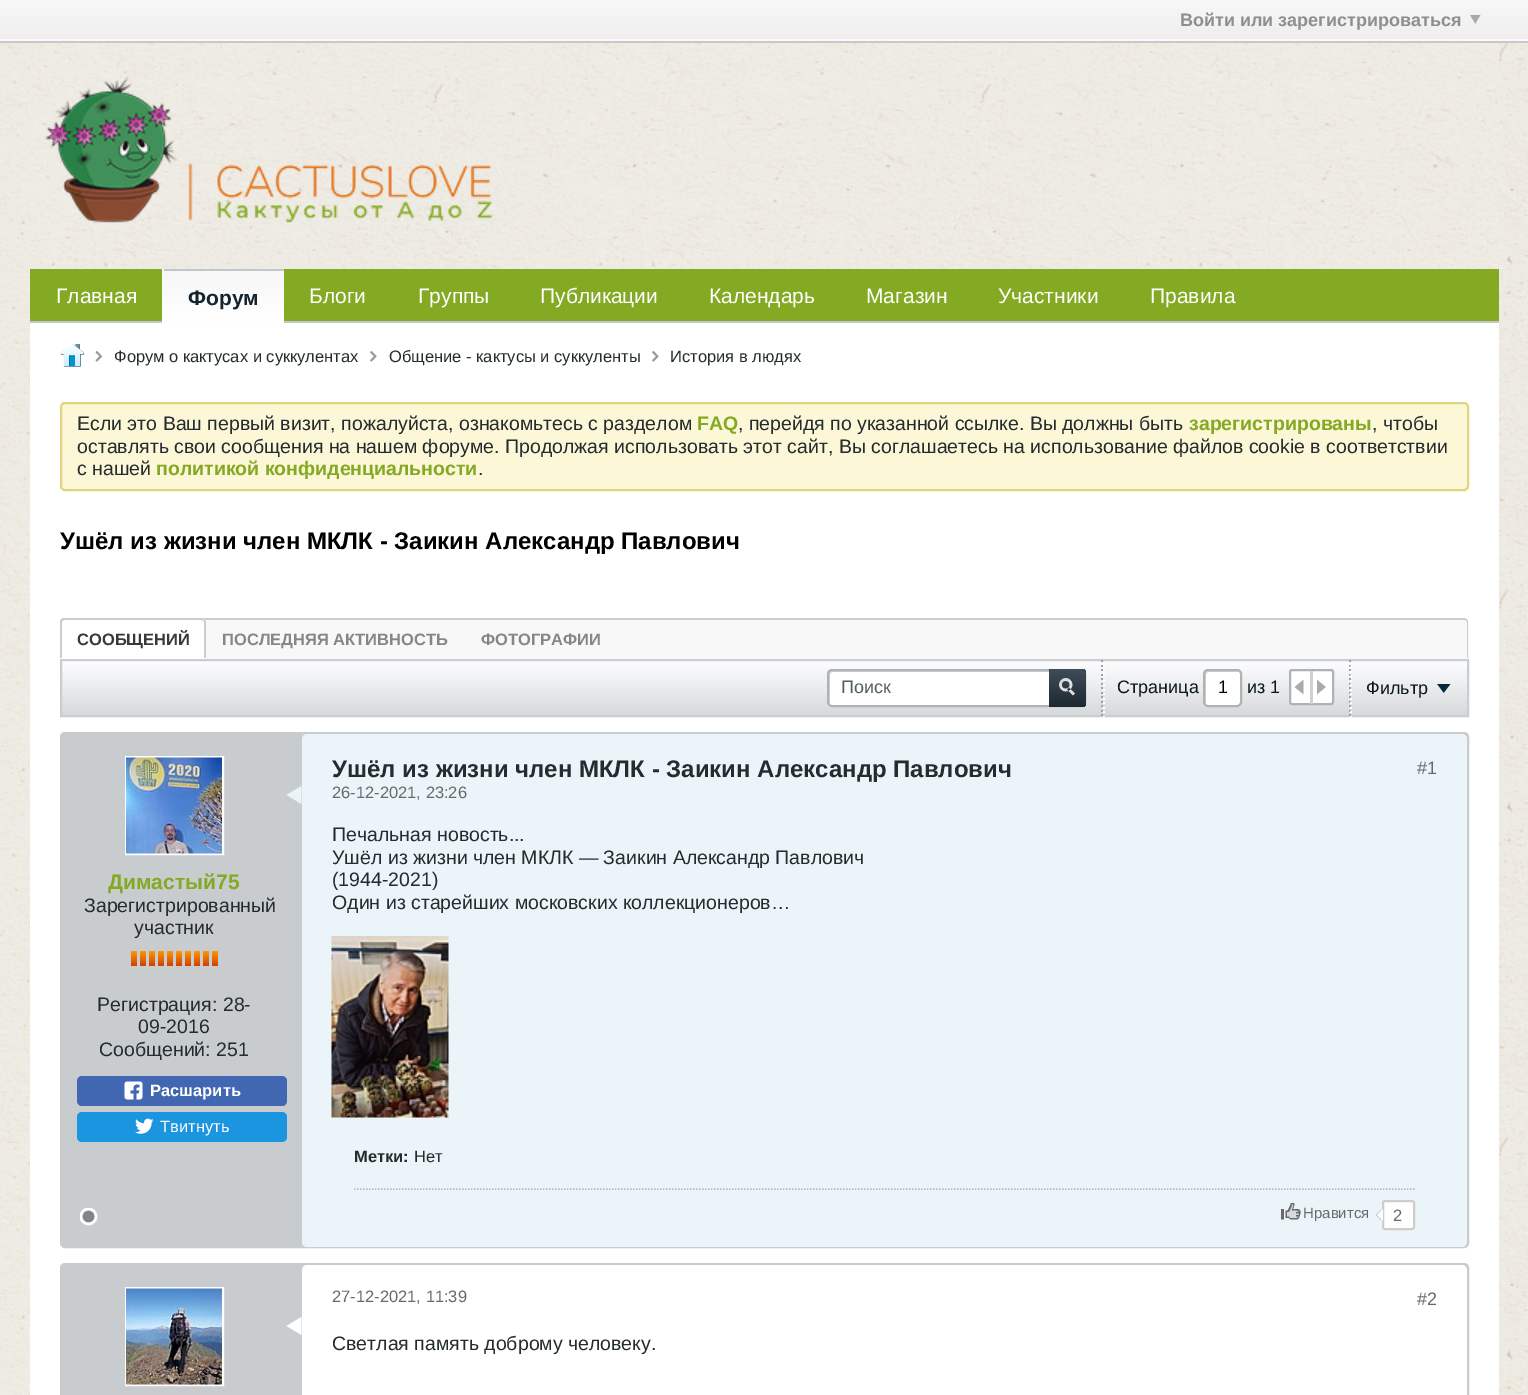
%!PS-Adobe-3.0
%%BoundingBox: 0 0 1528 1395
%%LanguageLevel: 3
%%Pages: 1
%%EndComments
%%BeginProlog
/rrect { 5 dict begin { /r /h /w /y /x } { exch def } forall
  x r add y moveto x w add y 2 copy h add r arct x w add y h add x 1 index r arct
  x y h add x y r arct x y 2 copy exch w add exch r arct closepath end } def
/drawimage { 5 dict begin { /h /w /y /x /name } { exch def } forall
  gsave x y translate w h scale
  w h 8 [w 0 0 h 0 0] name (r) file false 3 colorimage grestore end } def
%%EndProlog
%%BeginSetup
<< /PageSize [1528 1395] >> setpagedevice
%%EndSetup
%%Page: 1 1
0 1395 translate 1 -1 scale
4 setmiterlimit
1 setgray
0 0 1528 1395 rectfill
(images/1.raw) 0 43 1528 1352 drawimage
gsave newpath 0 0 moveto 1528 0 lineto 1528 39 lineto 0 39 lineto closepath clip newpath
<< /ShadingType 2 /ColorSpace /DeviceRGB /Coords [764 0 764 42] /Extend [true true] /Function << /FunctionType 2 /Domain [0 1] /C0 [0.973 0.973 0.973] /C1 [0.937 0.929 0.933] /N 1 >> >> shfill grestore
(images/2.raw) 1470 15 11 9 drawimage
0.98 setgray
0 39 1528 2 rectfill
0.78 0.784 0.788 setrgbcolor
0 41 1528 2 rectfill
0.918 0.922 0.925 setrgbcolor
30 43 1469 226 rectfill
(images/3.raw) 30 43 1469 226 drawimage
(images/4.raw) 45 76 448 147 drawimage
0.518 0.663 0.137 setrgbcolor
30 269 1469 52 rectfill
0.769 0.78 0.784 setrgbcolor
30 321 1469 2 rectfill
gsave newpath 162 269 moveto 164 269 lineto 164 270 lineto 162 270 lineto closepath clip newpath
<< /ShadingType 2 /ColorSpace /DeviceRGB /Coords [223 218 223 270] /Extend [true true] /Function << /FunctionType 2 /Domain [0 1] /C0 [0.969 0.969 0.969] /C1 [1 1 1] /N 1 >> >> shfill grestore
gsave newpath 162 270 moveto 284 270 lineto 284 323 lineto 162 323 lineto closepath clip newpath
<< /ShadingType 2 /ColorSpace /DeviceRGB /Coords [223 270 223 323] /Extend [true true] /Function << /FunctionType 2 /Domain [0 1] /C0 [0.969 0.969 0.969] /C1 [1 1 1] /N 1 >> >> shfill grestore
164 269 120 2 rectfill
1 setgray
30 323 1469 1072 rectfill
(images/5.raw) 60 344 24 23 drawimage
(images/6.raw) 95 351 7 11 drawimage
(images/7.raw) 370 351 7 11 drawimage
(images/7.raw) 652 351 7 11 drawimage
0.988 0.969 0.843 setrgbcolor
61 403 1407 87 4 rrect gsave fill grestore
0.882 0.831 0.494 setrgbcolor
2 setlinewidth
stroke
0.973 setgray
newpath 65 618 moveto 1464 618 lineto 1467 618 1469 620 1469 623 curveto 1469 659 lineto 60 659 lineto 60 623 lineto 60 620 62 618 65 618 curveto closepath fill
0.788 0.808 0.824 setrgbcolor
newpath 64 618 moveto 1464 618 lineto 1466 618 1468 620 1468 622 curveto 1468 658 lineto 60 658 lineto 60 622 lineto 60 620 62 618 64 618 curveto closepath 64 620 moveto 1464 620 lineto 1466 620 1467 621 1467 622 curveto 1467 658 lineto 62 658 lineto 62 622 lineto 62 621 63 620 64 620 curveto closepath eofill
1 setgray
newpath 65 618 moveto 201 618 lineto 204 618 206 620 206 623 curveto 206 659 lineto 60 659 lineto 60 623 lineto 60 620 62 618 65 618 curveto closepath fill
0.788 0.808 0.824 setrgbcolor
newpath 64 618 moveto 201 618 lineto 203 618 206 620 206 622 curveto 206 658 lineto 60 658 lineto 60 622 lineto 60 620 62 618 64 618 curveto closepath 64 620 moveto 201 620 lineto 203 620 204 621 204 622 curveto 204 658 lineto 62 658 lineto 62 622 lineto 62 621 63 620 64 620 curveto closepath eofill
gsave newpath 62 662 moveto 1467 662 lineto 1467 715 lineto 62 715 lineto closepath clip newpath
<< /ShadingType 2 /ColorSpace /DeviceRGB /Coords [764 660 764 716] /Extend [true true] /Function << /FunctionType 2 /Domain [0 1] /C0 [0.996 0.996 1] /C1 [0.835 0.847 0.855] /N 1 >> >> shfill grestore
61 660 1407 56 rectstroke
1 setgray
827 669 259 38 5 rrect fill
0.835 setgray
newpath 832 672 moveto 1084 672 lineto 1084 671 1083 671 1082 671 curveto 831 671 lineto 829 671 828 672 828 674 curveto 828 702 lineto 828 703 829 705 830 705 curveto 830 680 lineto 830 679 829 672 832 672 curveto closepath fill
0.682 0.702 0.714 setrgbcolor
828 670 257 36 4 rrect stroke
gsave newpath 1049 669 moveto 1081 669 lineto 1084 669 1086 671 1086 674 curveto 1086 702 lineto 1086 705 1084 707 1081 707 curveto 1049 707 lineto closepath clip newpath
<< /ShadingType 2 /ColorSpace /DeviceRGB /Coords [1067 669 1067 707] /Extend [true true] /Function << /FunctionType 2 /Domain [0 1] /C0 [0.251 0.302 0.353] /C1 [0.11 0.161 0.192] /N 1 >> >> shfill grestore
(images/8.raw) 1059 678 16 18 drawimage
(images/9.raw) 1101 660 2 56 drawimage
(images/10.raw) 1103 666 2 51 drawimage
1 setgray
1203 669 39 38 5 rrect fill
0.835 setgray
newpath 1209 672 moveto 1240.5 672 lineto 1240 671.5 1239 671 1238 671 curveto 1208 671 lineto 1206.5 671 1205 672.5 1205 674 curveto 1205 702 lineto 1205 703 1205.5 703.5 1206 704.5 curveto 1206 680 lineto 1206 677 1205 672 1209 672 curveto closepath fill
0.682 0.702 0.714 setrgbcolor
1204 670 37 36 4 rrect stroke
1 setgray
1290 670 43 34 2 rrect gsave fill grestore
0.682 0.702 0.714 setrgbcolor
stroke
0.804 0.82 0.831 setrgbcolor
1310 671 3 33 rectfill
(images/11.raw) 1295 680 9 15 drawimage
(images/12.raw) 1317 680 9 15 drawimage
(images/9.raw) 1349 660 2 56 drawimage
(images/13.raw) 1350 666 2 51 drawimage
(images/14.raw) 1437 684 14 9 drawimage
0.784 0.8 0.808 setrgbcolor
61 733 1407 514 4 rrect gsave fill grestore
stroke
1 setgray
126 757 97 97 rectstroke
(images/15.raw) 126 757 96 97 drawimage
gsave newpath 131 951 moveto 137 951 lineto 137 966 lineto 131 966 lineto closepath clip newpath
<< /ShadingType 2 /ColorSpace /DeviceRGB /Coords [134 951 134 966] /Extend [true true] /Function << /FunctionType 2 /Domain [0 1] /C0 [1 0.6 0] /C1 [0.812 0.255 0.016] /N 1 >> >> shfill grestore
gsave newpath 140 951 moveto 146 951 lineto 146 966 lineto 140 966 lineto closepath clip newpath
<< /ShadingType 2 /ColorSpace /DeviceRGB /Coords [143 951 143 966] /Extend [true true] /Function << /FunctionType 2 /Domain [0 1] /C0 [1 0.6 0] /C1 [0.812 0.255 0.016] /N 1 >> >> shfill grestore
gsave newpath 149 951 moveto 155 951 lineto 155 966 lineto 149 966 lineto closepath clip newpath
<< /ShadingType 2 /ColorSpace /DeviceRGB /Coords [152 951 152 966] /Extend [true true] /Function << /FunctionType 2 /Domain [0 1] /C0 [1 0.6 0] /C1 [0.812 0.255 0.016] /N 1 >> >> shfill grestore
gsave newpath 158 951 moveto 164 951 lineto 164 966 lineto 158 966 lineto closepath clip newpath
<< /ShadingType 2 /ColorSpace /DeviceRGB /Coords [161 951 161 966] /Extend [true true] /Function << /FunctionType 2 /Domain [0 1] /C0 [1 0.6 0] /C1 [0.812 0.255 0.016] /N 1 >> >> shfill grestore
gsave newpath 167 951 moveto 173 951 lineto 173 966 lineto 167 966 lineto closepath clip newpath
<< /ShadingType 2 /ColorSpace /DeviceRGB /Coords [170 951 170 966] /Extend [true true] /Function << /FunctionType 2 /Domain [0 1] /C0 [1 0.6 0] /C1 [0.812 0.255 0.016] /N 1 >> >> shfill grestore
gsave newpath 176 951 moveto 182 951 lineto 182 966 lineto 176 966 lineto closepath clip newpath
<< /ShadingType 2 /ColorSpace /DeviceRGB /Coords [179 951 179 966] /Extend [true true] /Function << /FunctionType 2 /Domain [0 1] /C0 [1 0.6 0] /C1 [0.812 0.255 0.016] /N 1 >> >> shfill grestore
gsave newpath 185 951 moveto 191 951 lineto 191 966 lineto 185 966 lineto closepath clip newpath
<< /ShadingType 2 /ColorSpace /DeviceRGB /Coords [188 951 188 966] /Extend [true true] /Function << /FunctionType 2 /Domain [0 1] /C0 [1 0.6 0] /C1 [0.812 0.255 0.016] /N 1 >> >> shfill grestore
gsave newpath 194 951 moveto 200 951 lineto 200 966 lineto 194 966 lineto closepath clip newpath
<< /ShadingType 2 /ColorSpace /DeviceRGB /Coords [197 951 197 966] /Extend [true true] /Function << /FunctionType 2 /Domain [0 1] /C0 [1 0.6 0] /C1 [0.812 0.255 0.016] /N 1 >> >> shfill grestore
gsave newpath 203 951 moveto 209 951 lineto 209 966 lineto 203 966 lineto closepath clip newpath
<< /ShadingType 2 /ColorSpace /DeviceRGB /Coords [206 951 206 966] /Extend [true true] /Function << /FunctionType 2 /Domain [0 1] /C0 [1 0.6 0] /C1 [0.812 0.255 0.016] /N 1 >> >> shfill grestore
gsave newpath 212 951 moveto 218 951 lineto 218 966 lineto 212 966 lineto closepath clip newpath
<< /ShadingType 2 /ColorSpace /DeviceRGB /Coords [215 951 215 966] /Extend [true true] /Function << /FunctionType 2 /Domain [0 1] /C0 [1 0.6 0] /C1 [0.812 0.255 0.016] /N 1 >> >> shfill grestore
(images/16.raw) 80 1208 18 18 drawimage
0.259 0.404 0.698 setrgbcolor
77 1076 210 30 5 rrect fill
(images/17.raw) 124 1081 19 19 drawimage
0.106 0.584 0.878 setrgbcolor
77 1112 210 30 5 rrect fill
(images/18.raw) 135 1118 19 16 drawimage
0.922 0.957 0.976 setrgbcolor
302 734 1165 513 5 rrect fill
newpath 301.5 786 moveto 301.5 804 lineto 286.5 795 lineto closepath fill
(images/19.raw) 331 936 118 182 drawimage
0.718 0.737 0.745 setrgbcolor
1.5 setlinewidth
[1.5 1.5] 0 setdash
newpath 354 1189 moveto 1414.5 1189 lineto stroke
(images/20.raw) 1281 1203 20 17 drawimage
1 setgray
1383 1201 31 28 2 rrect gsave fill grestore
0.82 0.8 0.8 setrgbcolor
2 setlinewidth
[] 0 setdash
stroke
newpath 1381.5 1209 moveto 1381.5 1221 lineto 1375.5 1215 lineto closepath fill
1 setgray
newpath 1383 1209 moveto 1383 1221 lineto 1377 1215 lineto closepath fill
0.784 0.8 0.808 setrgbcolor
61 1264 1407 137 4 rrect gsave fill grestore
stroke
1 setgray
126 1288 97 97 rectstroke
(images/21.raw) 126 1288 96 97 drawimage
302 1265 1165 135 5 rrect fill
newpath 301.5 1317 moveto 301.5 1335 lineto 286.5 1326 lineto closepath fill
/LiberationSans-Bold [18 0 0 -18 0 0] selectfont
0.557 setgray
1180 26 moveto (Войти или зарегистрироваться) show
/LiberationSans-Regular [21 0 0 -21 0 0] selectfont
1 setgray
56 303 moveto (Главная) show
/LiberationSans-Bold [21 0 0 -21 0 0] selectfont
0.075 0.141 0.184 setrgbcolor
188 305 moveto (Форум) show
/LiberationSans-Regular [21 0 0 -21 0 0] selectfont
1 setgray
309 303 moveto (Блоги) show
418 303 moveto (Группы) show
540 303 moveto (Публикации) show
709 303 moveto (Календарь) show
866 303 moveto (Магазин) show
998 303 moveto (Участники) show
1150 303 moveto (Правила) show
/LiberationSans-Regular [16.5 0 0 -16.5 0 0] selectfont
0.145 0.173 0.184 setrgbcolor
114 362 moveto (Форум о кактусах и суккулентах) show
389 362 moveto (Общение - кактусы и суккуленты) show
670 362 moveto (История в людях) show
/LiberationSans-Regular [19.5 0 0 -19.5 0 0] selectfont
77 430 moveto (Если это Ваш первый визит, пожалуйста, ознакомьтесь с разделом) show
/LiberationSans-Bold [19.5 0 0 -19.5 0 0] selectfont
0.518 0.663 0.137 setrgbcolor
697 430 moveto (FAQ) show
/LiberationSans-Regular [19.5 0 0 -19.5 0 0] selectfont
0.145 0.173 0.184 setrgbcolor
738 430 moveto (, перейдя по указанной ссылке. Вы должны быть) show
/LiberationSans-Bold [19.5 0 0 -19.5 0 0] selectfont
0.518 0.663 0.137 setrgbcolor
1189 430 moveto (зарегистрированы) show
/LiberationSans-Regular [19.5 0 0 -19.5 0 0] selectfont
0.145 0.173 0.184 setrgbcolor
1372 430 moveto (, чтобы) show
77 453 moveto (оставлять свои сообщения на нашем форуме. Продолжая использовать этот сайт, Вы соглашаетесь на использование файлов cookie в соответствии) show
77 475 moveto (с нашей) show
/LiberationSans-Bold [19.5 0 0 -19.5 0 0] selectfont
0.518 0.663 0.137 setrgbcolor
156 475 moveto (политикой конфиденциальности) show
/LiberationSans-Regular [19.5 0 0 -19.5 0 0] selectfont
0.145 0.173 0.184 setrgbcolor
478 475 moveto (.) show
/LiberationSans-Bold [24 0 0 -24 0 0] selectfont
0 setgray
60 549 moveto (Ушёл из жизни член МКЛК - Заикин Александр Павлович) show
/LiberationSans-Bold [16.5 0 0 -16.5 0 0] selectfont
0.204 0.227 0.239 setrgbcolor
77 645 moveto (СООБЩЕНИЙ) show
0.514 0.529 0.537 setrgbcolor
222 645 moveto (ПОСЛЕДНЯЯ АКТИВНОСТЬ) show
481 645 moveto (ФОТОГРАФИИ) show
/LiberationSans-Regular [18 0 0 -18 0 0] selectfont
0.333 0.376 0.396 setrgbcolor
841 693 moveto (Поиск) show
0.035 0.086 0.106 setrgbcolor
1117 693 moveto (Страница) show
0 setgray
1218 693 moveto (1) show
0.035 0.086 0.106 setrgbcolor
1247 693 moveto (из 1) show
1366 694 moveto (Фильтр) show
/LiberationSans-Bold [21 0 0 -21 0 0] selectfont
0.518 0.663 0.137 setrgbcolor
108 889 moveto (Димастый75) show
/LiberationSans-Regular [19.5 0 0 -19.5 0 0] selectfont
0.145 0.173 0.184 setrgbcolor
84 912 moveto (Зарегистрированный) show
134 934 moveto (участник) show
97 1011 moveto (Регистрация: 28-) show
138 1033 moveto (09-2016) show
99 1056 moveto (Сообщений: 251) show
/LiberationSans-Bold [16.5 0 0 -16.5 0 0] selectfont
1 setgray
150 1096 moveto (Расшарить) show
/LiberationSans-Regular [16.5 0 0 -16.5 0 0] selectfont
160 1132 moveto (Твитнуть) show
/LiberationSans-Bold [24 0 0 -24 0 0] selectfont
0.145 0.173 0.184 setrgbcolor
332 777 moveto (Ушёл из жизни член МКЛК - Заикин Александр Павлович) show
/LiberationSans-Regular [16.5 0 0 -16.5 0 0] selectfont
0.396 0.416 0.427 setrgbcolor
332 798 moveto (26-12-2021, 23:26) show
/LiberationSans-Regular [18 0 0 -18 0 0] selectfont
1417 774 moveto (#1) show
/LiberationSans-Regular [19.5 0 0 -19.5 0 0] selectfont
0.145 0.173 0.184 setrgbcolor
332 841 moveto (Печальная новость...) show
332 864 moveto (Ушёл из жизни член МКЛК — Заикин Александр Павлович) show
332 886 moveto (\(1944-2021\)) show
332 909 moveto (Один из старейших московских коллекционеров…) show
/LiberationSans-Bold [16.5 0 0 -16.5 0 0] selectfont
354 1162 moveto (Метки:) show
/LiberationSans-Regular [16.5 0 0 -16.5 0 0] selectfont
414 1162 moveto (Нет) show
/LiberationSans-Regular [15 0 0 -15 0 0] selectfont
0.396 0.416 0.427 setrgbcolor
1303 1218 moveto (Нравится) show
/LiberationSans-Regular [16.5 0 0 -16.5 0 0] selectfont
1393 1221 moveto (2) show
332 1302 moveto (27-12-2021, 11:39) show
/LiberationSans-Regular [18 0 0 -18 0 0] selectfont
1417 1305 moveto (#2) show
/LiberationSans-Regular [19.5 0 0 -19.5 0 0] selectfont
0.145 0.173 0.184 setrgbcolor
332 1350 moveto (Светлая память доброму человеку.) show
showpage
%%EOF
